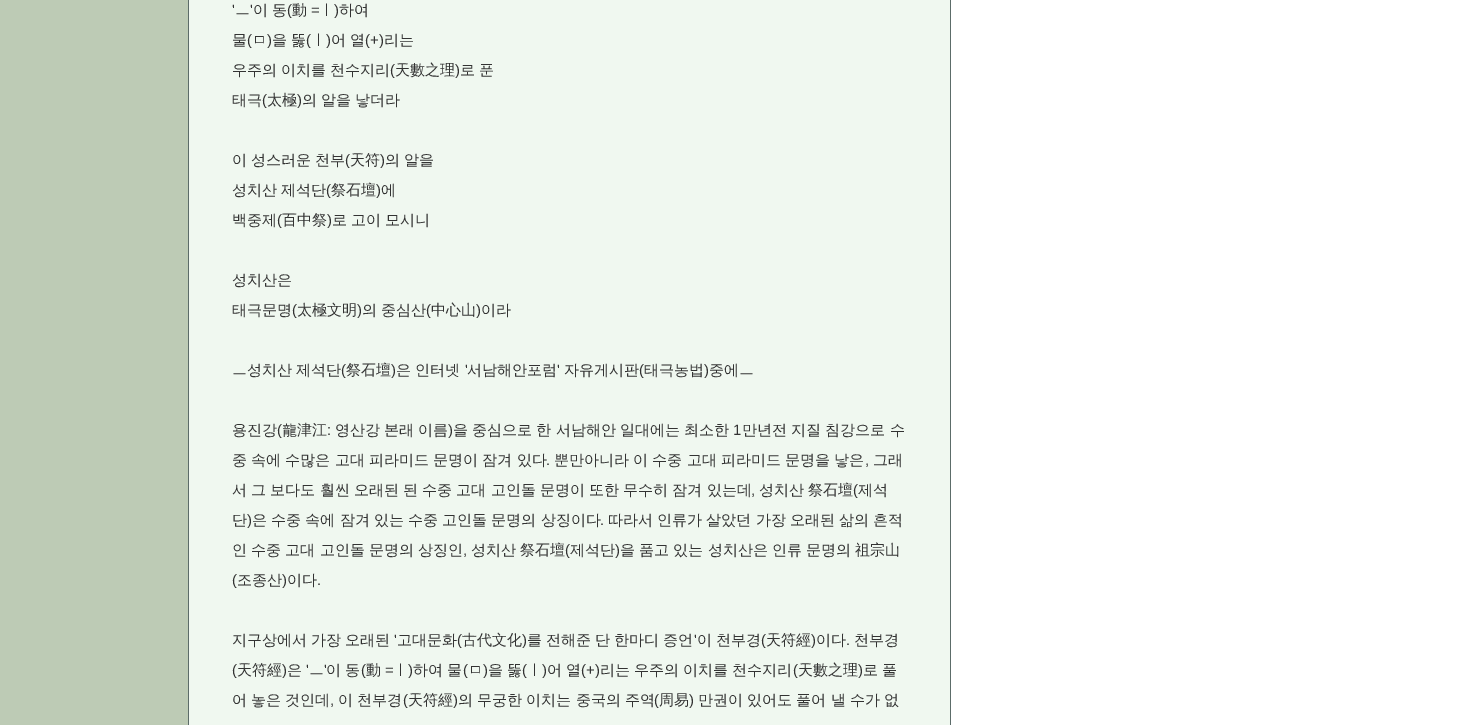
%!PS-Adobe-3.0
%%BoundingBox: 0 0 1483 725
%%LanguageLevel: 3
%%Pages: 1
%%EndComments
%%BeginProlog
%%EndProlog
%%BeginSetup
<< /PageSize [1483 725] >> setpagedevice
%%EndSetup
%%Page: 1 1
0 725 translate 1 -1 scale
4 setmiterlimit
1 setgray
0 0 1483 725 rectfill
0.741 0.796 0.71 setrgbcolor
0 0 188 725 rectfill
0.361 0.424 0.412 setrgbcolor
188 0 1 725 rectfill
0.941 0.973 0.941 setrgbcolor
189 0 761 725 rectfill
0.361 0.424 0.412 setrgbcolor
950 0 1 725 rectfill
/LiberationSans-Regular [15 0 0 -15 0 0] selectfont
0.2 setgray
232 15 moveto (') show
250 15 moveto (') show
/WenQuanYiZenHei-Medium [15 0 0 -15 0 0] selectfont
253 15 moveto -0.3 0 32 (이 동) widthshow
/LiberationSans-Regular [15 0 0 -15 0 0] selectfont
287 15 moveto (\() show
/WenQuanYiZenHei-Medium [15 0 0 -15 0 0] selectfont
292 15 moveto (動) show
/LiberationSans-Regular [15 0 0 -15 0 0] selectfont
311 15 moveto (=) show
/WenQuanYiZenHei-Medium [15 0 0 -15 0 0] selectfont
319 15 moveto (ㅣ) show
/LiberationSans-Regular [15 0 0 -15 0 0] selectfont
334 15 moveto (\)) show
/WenQuanYiZenHei-Medium [15 0 0 -15 0 0] selectfont
339 15 moveto (하여) show
235 15 moveto (ㅡ) show
232 45 moveto (물) show
/LiberationSans-Regular [15 0 0 -15 0 0] selectfont
247 45 moveto (\() show
/WenQuanYiZenHei-Medium [15 0 0 -15 0 0] selectfont
252 45 moveto (ㅁ) show
/LiberationSans-Regular [15 0 0 -15 0 0] selectfont
267 45 moveto (\)) show
/WenQuanYiZenHei-Medium [15 0 0 -15 0 0] selectfont
272 45 moveto -0.3 0 32 (을 뚫) widthshow
/LiberationSans-Regular [15 0 0 -15 0 0] selectfont
306 45 moveto (\() show
/WenQuanYiZenHei-Medium [15 0 0 -15 0 0] selectfont
311 45 moveto (ㅣ) show
/LiberationSans-Regular [15 0 0 -15 0 0] selectfont
326 45 moveto (\)) show
/WenQuanYiZenHei-Medium [15 0 0 -15 0 0] selectfont
331 45 moveto -0.3 0 32 (어 열) widthshow
/LiberationSans-Regular [15 0 0 -15 0 0] selectfont
365 45 moveto (\(+\)) show
/WenQuanYiZenHei-Medium [15 0 0 -15 0 0] selectfont
384 45 moveto (리는) show
232 75 moveto -0.3 0 32 (우주의 이치를 천수지리) widthshow
/LiberationSans-Regular [15 0 0 -15 0 0] selectfont
390 75 moveto (\() show
/WenQuanYiZenHei-Medium [15 0 0 -15 0 0] selectfont
395 75 moveto (天數之理) show
/LiberationSans-Regular [15 0 0 -15 0 0] selectfont
455 75 moveto (\)) show
/WenQuanYiZenHei-Medium [15 0 0 -15 0 0] selectfont
460 75 moveto -0.3 0 32 (로 푼) widthshow
232 105 moveto (태극) show
/LiberationSans-Regular [15 0 0 -15 0 0] selectfont
262 105 moveto (\() show
/WenQuanYiZenHei-Medium [15 0 0 -15 0 0] selectfont
267 105 moveto (太極) show
/LiberationSans-Regular [15 0 0 -15 0 0] selectfont
297 105 moveto (\)) show
/WenQuanYiZenHei-Medium [15 0 0 -15 0 0] selectfont
302 105 moveto -0.3 0 32 (의 알을 낳더라) widthshow
232 165 moveto -0.3 0 32 (이 성스러운 천부) widthshow
/LiberationSans-Regular [15 0 0 -15 0 0] selectfont
345 165 moveto (\() show
/WenQuanYiZenHei-Medium [15 0 0 -15 0 0] selectfont
350 165 moveto (天符) show
/LiberationSans-Regular [15 0 0 -15 0 0] selectfont
380 165 moveto (\)) show
/WenQuanYiZenHei-Medium [15 0 0 -15 0 0] selectfont
385 165 moveto -0.3 0 32 (의 알을) widthshow
232 195 moveto -0.3 0 32 (성치산 제석단) widthshow
/LiberationSans-Regular [15 0 0 -15 0 0] selectfont
326 195 moveto (\() show
/WenQuanYiZenHei-Medium [15 0 0 -15 0 0] selectfont
331 195 moveto (祭石壇) show
/LiberationSans-Regular [15 0 0 -15 0 0] selectfont
376 195 moveto (\)) show
/WenQuanYiZenHei-Medium [15 0 0 -15 0 0] selectfont
381 195 moveto (에) show
232 225 moveto (백중제) show
/LiberationSans-Regular [15 0 0 -15 0 0] selectfont
277 225 moveto (\() show
/WenQuanYiZenHei-Medium [15 0 0 -15 0 0] selectfont
282 225 moveto (百中祭) show
/LiberationSans-Regular [15 0 0 -15 0 0] selectfont
327 225 moveto (\)) show
/WenQuanYiZenHei-Medium [15 0 0 -15 0 0] selectfont
332 225 moveto -0.3 0 32 (로 고이 모시니) widthshow
232 285 moveto (성치산은) show
232 315 moveto (태극문명) show
/LiberationSans-Regular [15 0 0 -15 0 0] selectfont
292 315 moveto (\() show
/WenQuanYiZenHei-Medium [15 0 0 -15 0 0] selectfont
297 315 moveto (太極文明) show
/LiberationSans-Regular [15 0 0 -15 0 0] selectfont
357 315 moveto (\)) show
/WenQuanYiZenHei-Medium [15 0 0 -15 0 0] selectfont
362 315 moveto -0.3 0 32 (의 중심산) widthshow
/LiberationSans-Regular [15 0 0 -15 0 0] selectfont
426 315 moveto (\() show
/WenQuanYiZenHei-Medium [15 0 0 -15 0 0] selectfont
431 315 moveto (中心山) show
/LiberationSans-Regular [15 0 0 -15 0 0] selectfont
476 315 moveto (\)) show
/WenQuanYiZenHei-Medium [15 0 0 -15 0 0] selectfont
481 315 moveto (이라) show
232 375 moveto (ㅡ성치산 제석단) show
/LiberationSans-Regular [15 0 0 -15 0 0] selectfont
341 375 moveto (\() show
/WenQuanYiZenHei-Medium [15 0 0 -15 0 0] selectfont
346 375 moveto (祭石壇) show
/LiberationSans-Regular [15 0 0 -15 0 0] selectfont
391 375 moveto (\)) show
/WenQuanYiZenHei-Medium [15 0 0 -15 0 0] selectfont
396 375 moveto (은 인터넷) show
/LiberationSans-Regular [15 0 0 -15 0 0] selectfont
465 375 moveto (') show
/WenQuanYiZenHei-Medium [15 0 0 -15 0 0] selectfont
467 375 moveto (서남해안포럼) show
/LiberationSans-Regular [15 0 0 -15 0 0] selectfont
557 375 moveto (') show
/WenQuanYiZenHei-Medium [15 0 0 -15 0 0] selectfont
564 375 moveto (자유게시판) show
/LiberationSans-Regular [15 0 0 -15 0 0] selectfont
639 375 moveto (\() show
/WenQuanYiZenHei-Medium [15 0 0 -15 0 0] selectfont
644 375 moveto (태극농법) show
/LiberationSans-Regular [15 0 0 -15 0 0] selectfont
704 375 moveto (\)) show
/WenQuanYiZenHei-Medium [15 0 0 -15 0 0] selectfont
709 375 moveto (중에ㅡ) show
232 435 moveto (용진강) show
/LiberationSans-Regular [15 0 0 -15 0 0] selectfont
277 435 moveto (\() show
/WenQuanYiZenHei-Medium [15 0 0 -15 0 0] selectfont
282 435 moveto (龍津江) show
/LiberationSans-Regular [15 0 0 -15 0 0] selectfont
327 435 moveto (:) show
/WenQuanYiZenHei-Medium [15 0 0 -15 0 0] selectfont
335 435 moveto -0.25 0 32 (영산강 본래 이름) widthshow
/LiberationSans-Regular [15 0 0 -15 0 0] selectfont
448 435 moveto (\)) show
/WenQuanYiZenHei-Medium [15 0 0 -15 0 0] selectfont
453 435 moveto -0.25 0 32 (을 중심으로 한 서남해안 일대에는 최소한) widthshow
/LiberationSans-Regular [15 0 0 -15 0 0] selectfont
733 435 moveto (1) show
/WenQuanYiZenHei-Medium [15 0 0 -15 0 0] selectfont
742 435 moveto -0.25 0 32 (만년전 지질 침강으로 수) widthshow
232 465 moveto -0.25 0 32 (중 속에 수많은 고대 피라미드 문명이 잠겨 있다) widthshow
/LiberationSans-Regular [15 0 0 -15 0 0] selectfont
546 465 moveto (.) show
/WenQuanYiZenHei-Medium [15 0 0 -15 0 0] selectfont
554 465 moveto -0.25 0 32 (뿐만아니라 이 수중 고대 피라미드 문명을 낳은) widthshow
/LiberationSans-Regular [15 0 0 -15 0 0] selectfont
865 465 moveto (,) show
/WenQuanYiZenHei-Medium [15 0 0 -15 0 0] selectfont
873 465 moveto (그래) show
232 495 moveto -0.3 0 32 (서 그 보다도 훨씬 오래된 된 수중 고대 고인돌 문명이 또한 무수히 잠겨 있는데) widthshow
/LiberationSans-Regular [15 0 0 -15 0 0] selectfont
751 495 moveto (,) show
/WenQuanYiZenHei-Medium [15 0 0 -15 0 0] selectfont
759 495 moveto -0.3 0 32 (성치산 祭石壇) widthshow
/LiberationSans-Regular [15 0 0 -15 0 0] selectfont
853 495 moveto (\() show
/WenQuanYiZenHei-Medium [15 0 0 -15 0 0] selectfont
858 495 moveto (제석) show
232 525 moveto (단) show
/LiberationSans-Regular [15 0 0 -15 0 0] selectfont
247 525 moveto (\)) show
/WenQuanYiZenHei-Medium [15 0 0 -15 0 0] selectfont
252 525 moveto -0.3 0 32 (은 수중 속에 잠겨 있는 수중 고인돌 문명의 상징이다) widthshow
/LiberationSans-Regular [15 0 0 -15 0 0] selectfont
600 525 moveto (.) show
/WenQuanYiZenHei-Medium [15 0 0 -15 0 0] selectfont
608 525 moveto -0.3 0 32 (따라서 인류가 살았던 가장 오래된 삶의 흔적) widthshow
232 555 moveto -0.3 0 32 (인 수중 고대 고인돌 문명의 상징인) widthshow
/LiberationSans-Regular [15 0 0 -15 0 0] selectfont
463 555 moveto (,) show
/WenQuanYiZenHei-Medium [15 0 0 -15 0 0] selectfont
471 555 moveto -0.3 0 32 (성치산 祭石壇) widthshow
/LiberationSans-Regular [15 0 0 -15 0 0] selectfont
565 555 moveto (\() show
/WenQuanYiZenHei-Medium [15 0 0 -15 0 0] selectfont
570 555 moveto (제석단) show
/LiberationSans-Regular [15 0 0 -15 0 0] selectfont
615 555 moveto (\)) show
/WenQuanYiZenHei-Medium [15 0 0 -15 0 0] selectfont
620 555 moveto -0.3 0 32 (을 품고 있는 성치산은 인류 문명의 祖宗山) widthshow
/LiberationSans-Regular [15 0 0 -15 0 0] selectfont
232 585 moveto (\() show
/WenQuanYiZenHei-Medium [15 0 0 -15 0 0] selectfont
237 585 moveto (조종산) show
/LiberationSans-Regular [15 0 0 -15 0 0] selectfont
282 585 moveto (\)) show
/WenQuanYiZenHei-Medium [15 0 0 -15 0 0] selectfont
287 585 moveto (이다) show
/LiberationSans-Regular [15 0 0 -15 0 0] selectfont
317 585 moveto (.) show
/WenQuanYiZenHei-Medium [15 0 0 -15 0 0] selectfont
232 645 moveto -0.5 0 32 (지구상에서 가장 오래된) widthshow
/LiberationSans-Regular [15 0 0 -15 0 0] selectfont
394 645 moveto (') show
/WenQuanYiZenHei-Medium [15 0 0 -15 0 0] selectfont
397 645 moveto (고대문화) show
/LiberationSans-Regular [15 0 0 -15 0 0] selectfont
457 645 moveto (\() show
/WenQuanYiZenHei-Medium [15 0 0 -15 0 0] selectfont
462 645 moveto (古代文化) show
/LiberationSans-Regular [15 0 0 -15 0 0] selectfont
522 645 moveto (\)) show
/WenQuanYiZenHei-Medium [15 0 0 -15 0 0] selectfont
527 645 moveto -0.5 0 32 (를 전해준 단 한마디 증언) widthshow
/LiberationSans-Regular [15 0 0 -15 0 0] selectfont
694 645 moveto (') show
/WenQuanYiZenHei-Medium [15 0 0 -15 0 0] selectfont
697 645 moveto -0.5 0 32 (이 천부경) widthshow
/LiberationSans-Regular [15 0 0 -15 0 0] selectfont
761 645 moveto (\() show
/WenQuanYiZenHei-Medium [15 0 0 -15 0 0] selectfont
766 645 moveto (天符經) show
/LiberationSans-Regular [15 0 0 -15 0 0] selectfont
811 645 moveto (\)) show
/WenQuanYiZenHei-Medium [15 0 0 -15 0 0] selectfont
816 645 moveto (이다) show
/LiberationSans-Regular [15 0 0 -15 0 0] selectfont
846 645 moveto (.) show
/WenQuanYiZenHei-Medium [15 0 0 -15 0 0] selectfont
854 645 moveto (천부경) show
/LiberationSans-Regular [15 0 0 -15 0 0] selectfont
232 675 moveto (\() show
/WenQuanYiZenHei-Medium [15 0 0 -15 0 0] selectfont
237 675 moveto (天符經) show
/LiberationSans-Regular [15 0 0 -15 0 0] selectfont
282 675 moveto (\)) show
/WenQuanYiZenHei-Medium [15 0 0 -15 0 0] selectfont
287 675 moveto (은) show
/LiberationSans-Regular [15 0 0 -15 0 0] selectfont
306 675 moveto (') show
324 675 moveto (') show
/WenQuanYiZenHei-Medium [15 0 0 -15 0 0] selectfont
326 675 moveto -0.5 0 32 (이 동) widthshow
/LiberationSans-Regular [15 0 0 -15 0 0] selectfont
361 675 moveto (\() show
/WenQuanYiZenHei-Medium [15 0 0 -15 0 0] selectfont
366 675 moveto (動) show
/LiberationSans-Regular [15 0 0 -15 0 0] selectfont
385 675 moveto (=) show
/WenQuanYiZenHei-Medium [15 0 0 -15 0 0] selectfont
393 675 moveto (ㅣ) show
/LiberationSans-Regular [15 0 0 -15 0 0] selectfont
408 675 moveto (\)) show
/WenQuanYiZenHei-Medium [15 0 0 -15 0 0] selectfont
413 675 moveto -0.5 0 32 (하여 물) widthshow
/LiberationSans-Regular [15 0 0 -15 0 0] selectfont
463 675 moveto (\() show
/WenQuanYiZenHei-Medium [15 0 0 -15 0 0] selectfont
468 675 moveto (ㅁ) show
/LiberationSans-Regular [15 0 0 -15 0 0] selectfont
483 675 moveto (\)) show
/WenQuanYiZenHei-Medium [15 0 0 -15 0 0] selectfont
488 675 moveto -0.5 0 32 (을 뚫) widthshow
/LiberationSans-Regular [15 0 0 -15 0 0] selectfont
522 675 moveto (\() show
/WenQuanYiZenHei-Medium [15 0 0 -15 0 0] selectfont
527 675 moveto (ㅣ) show
/LiberationSans-Regular [15 0 0 -15 0 0] selectfont
542 675 moveto (\)) show
/WenQuanYiZenHei-Medium [15 0 0 -15 0 0] selectfont
547 675 moveto -0.5 0 32 (어 열) widthshow
/LiberationSans-Regular [15 0 0 -15 0 0] selectfont
581 675 moveto (\(+\)) show
/WenQuanYiZenHei-Medium [15 0 0 -15 0 0] selectfont
600 675 moveto -0.5 0 32 (리는 우주의 이치를 천수지리) widthshow
/LiberationSans-Regular [15 0 0 -15 0 0] selectfont
793 675 moveto (\() show
/WenQuanYiZenHei-Medium [15 0 0 -15 0 0] selectfont
798 675 moveto (天數之理) show
/LiberationSans-Regular [15 0 0 -15 0 0] selectfont
858 675 moveto (\)) show
/WenQuanYiZenHei-Medium [15 0 0 -15 0 0] selectfont
863 675 moveto -0.5 0 32 (로 풀) widthshow
309 675 moveto (ㅡ) show
232 705 moveto -0.25 0 32 (어 놓은 것인데) widthshow
/LiberationSans-Regular [15 0 0 -15 0 0] selectfont
330 705 moveto (,) show
/WenQuanYiZenHei-Medium [15 0 0 -15 0 0] selectfont
338 705 moveto -0.25 0 32 (이 천부경) widthshow
/LiberationSans-Regular [15 0 0 -15 0 0] selectfont
403 705 moveto (\() show
/WenQuanYiZenHei-Medium [15 0 0 -15 0 0] selectfont
408 705 moveto (天符經) show
/LiberationSans-Regular [15 0 0 -15 0 0] selectfont
453 705 moveto (\)) show
/WenQuanYiZenHei-Medium [15 0 0 -15 0 0] selectfont
458 705 moveto -0.25 0 32 (의 무궁한 이치는 중국의 주역) widthshow
/LiberationSans-Regular [15 0 0 -15 0 0] selectfont
654 705 moveto (\() show
/WenQuanYiZenHei-Medium [15 0 0 -15 0 0] selectfont
659 705 moveto (周易) show
/LiberationSans-Regular [15 0 0 -15 0 0] selectfont
689 705 moveto (\)) show
/WenQuanYiZenHei-Medium [15 0 0 -15 0 0] selectfont
698 705 moveto -0.25 0 32 (만권이 있어도 풀어 낼 수가 없) widthshow
showpage
%%EOF
